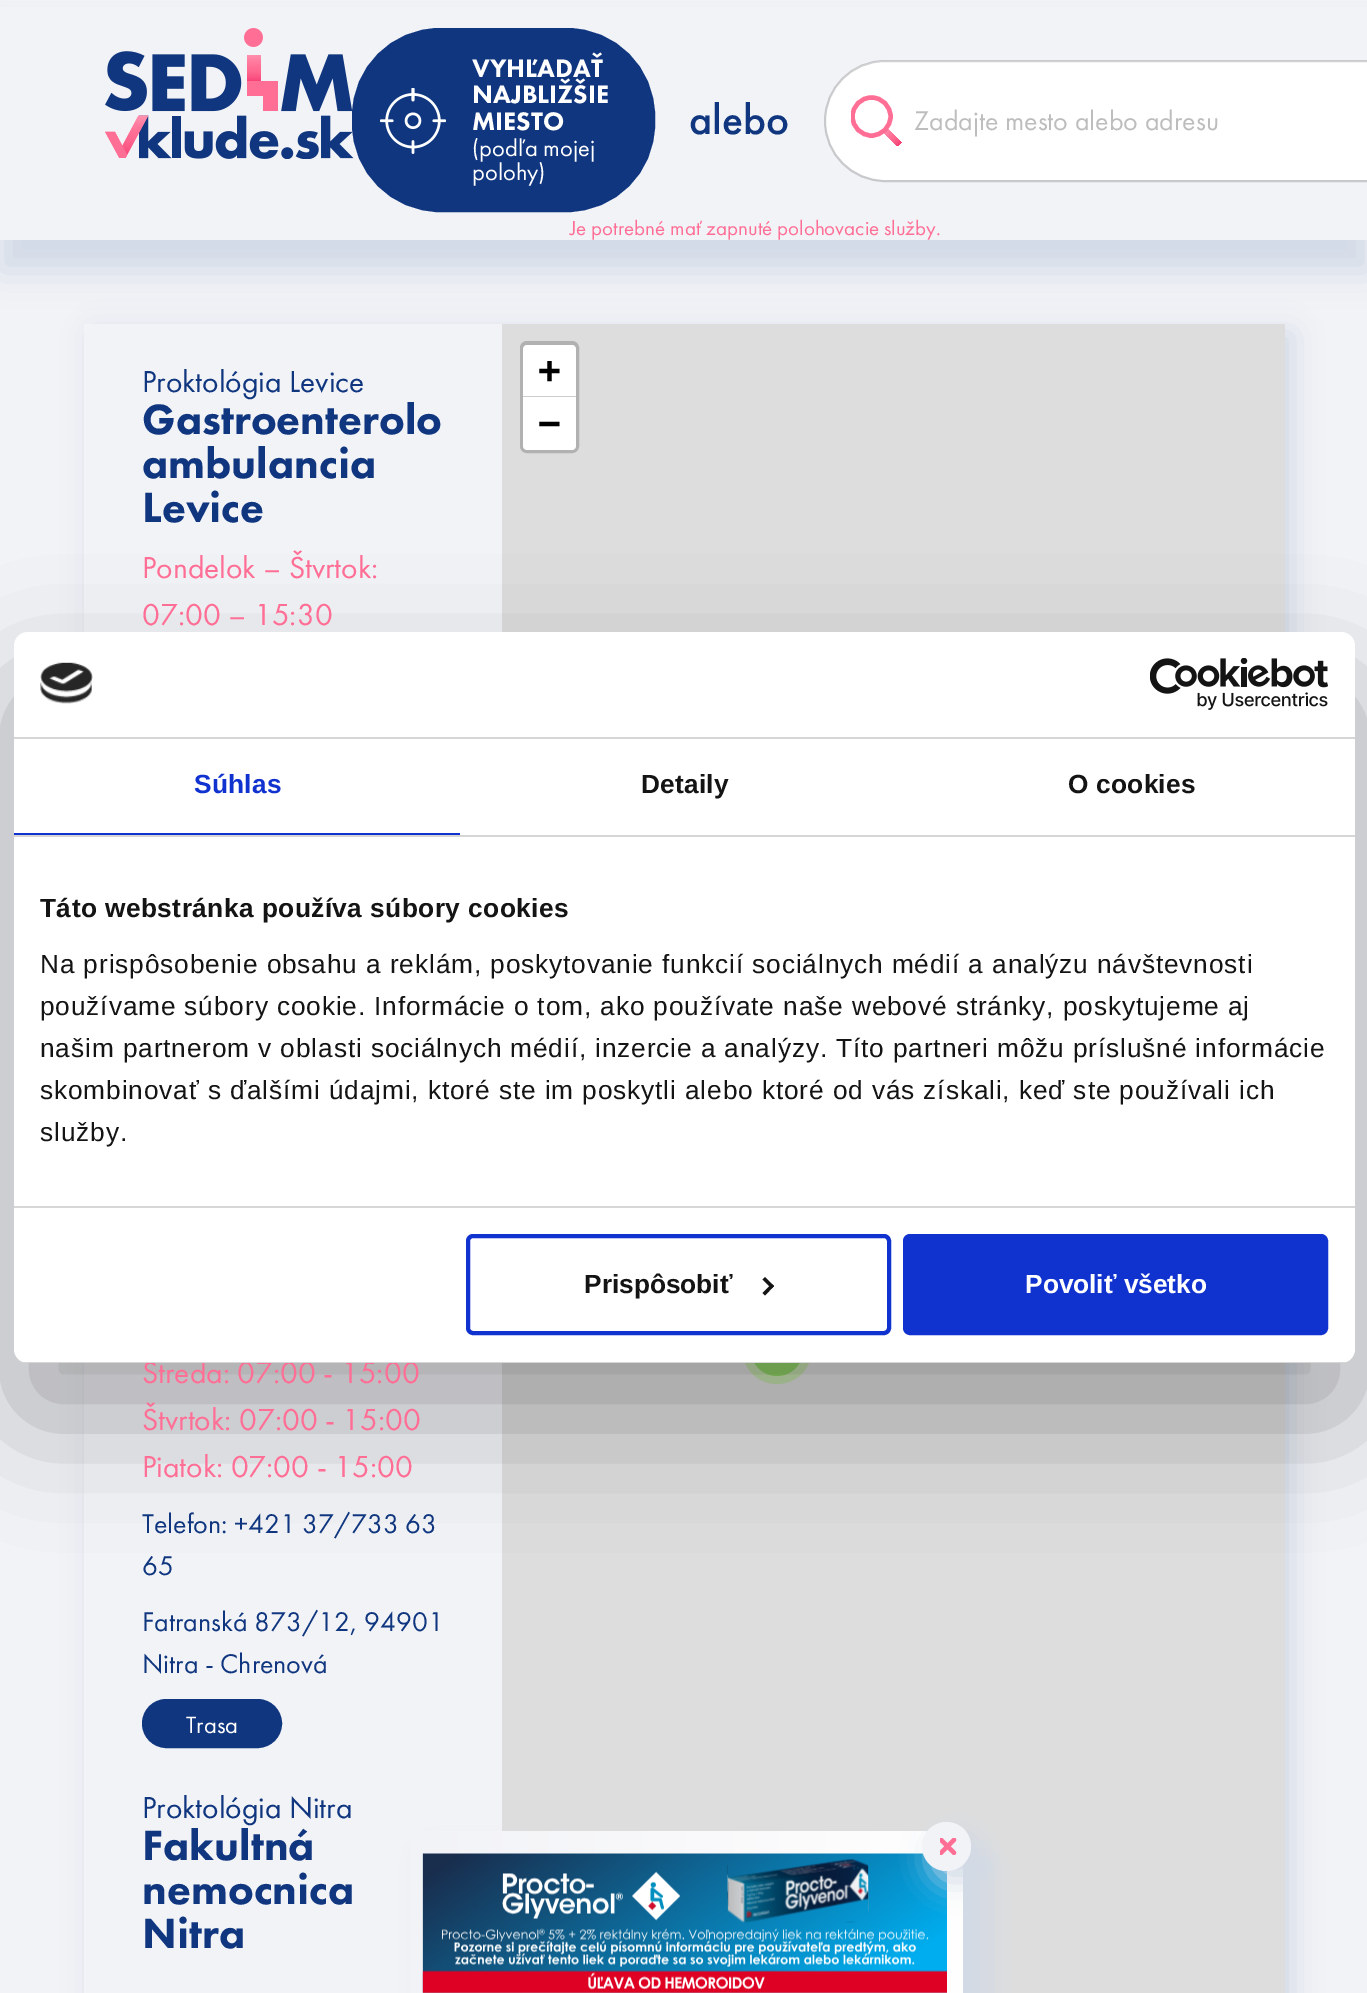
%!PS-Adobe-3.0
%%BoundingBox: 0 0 1367 1993
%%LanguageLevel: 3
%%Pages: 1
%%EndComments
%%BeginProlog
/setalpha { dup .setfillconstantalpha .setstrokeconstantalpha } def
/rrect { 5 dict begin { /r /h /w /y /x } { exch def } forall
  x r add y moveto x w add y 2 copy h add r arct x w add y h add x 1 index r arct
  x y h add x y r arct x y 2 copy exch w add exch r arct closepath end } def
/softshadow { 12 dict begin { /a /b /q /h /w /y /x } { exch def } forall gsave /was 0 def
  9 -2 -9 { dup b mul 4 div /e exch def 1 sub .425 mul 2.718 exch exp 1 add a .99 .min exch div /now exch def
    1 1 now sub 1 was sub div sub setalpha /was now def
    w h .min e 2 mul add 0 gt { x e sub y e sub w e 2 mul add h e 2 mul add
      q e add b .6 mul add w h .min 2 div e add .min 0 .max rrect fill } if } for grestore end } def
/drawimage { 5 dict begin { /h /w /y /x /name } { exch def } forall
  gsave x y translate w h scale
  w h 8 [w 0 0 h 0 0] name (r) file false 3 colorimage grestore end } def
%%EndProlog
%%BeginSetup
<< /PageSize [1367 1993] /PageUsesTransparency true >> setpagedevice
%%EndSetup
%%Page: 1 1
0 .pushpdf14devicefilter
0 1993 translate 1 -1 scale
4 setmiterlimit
0.949 0.953 0.969 setrgbcolor
0 0 1367 1993 rectfill
gsave
newpath 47 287 moveto 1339 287 lineto 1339 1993 lineto 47 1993 lineto closepath 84 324 moveto 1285 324 lineto 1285 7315 lineto 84 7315 lineto closepath eoclip newpath
0.82 0.851 0.902 setrgbcolor
93 333 1200 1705 0 15 1 softshadow
grestore
0.867 setgray
502 324 783 1669 rectfill
0.82 0.851 0.902 setrgbcolor
0 32 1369 239 0 17.5 1 softshadow
0.949 0.953 0.969 setrgbcolor
0 7 1367 233 rectfill
(images/1.raw) 105 28 249 131 drawimage
0.059 0.212 0.498 setrgbcolor
353 29 301 182 87 rrect gsave fill grestore
2 setlinewidth
stroke
(images/2.raw) 380 88 66 66 drawimage
1 setgray
newpath 885.5 61 moveto 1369 61 lineto 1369 180 lineto 885.5 180 lineto 852.5 180 826 153.5 826 120.5 curveto 826 87.5 852.5 61 885.5 61 curveto closepath fill
0.2 setalpha
0.129 setgray
825 61 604 120 60 rrect stroke
1 setalpha
gsave newpath 886.5 128 moveto 901.5 142.5 lineto 898 146 lineto 883 131.5 lineto closepath clip newpath
<< /ShadingType 2 /ColorSpace /DeviceRGB /Coords [885 130 900 144] /Extend [true true] /Function << /FunctionType 3 /Domain [0 1] /Functions [<< /FunctionType 2 /Domain [0 1] /C0 [1 0.573 0.686] /C1 [1 0.49 0.627] /N 1 >> << /FunctionType 2 /Domain [0 1] /C0 [1 0.49 0.627] /C1 [1 0.431 0.584] /N 1 >> << /FunctionType 2 /Domain [0 1] /C0 [1 0.431 0.584] /C1 [0.992 0.404 0.565] /N 1 >> << /FunctionType 2 /Domain [0 1] /C0 [0.992 0.404 0.565] /C1 [0.98 0.337 0.518] /N 1 >> << /FunctionType 2 /Domain [0 1] /C0 [0.98 0.337 0.518] /C1 [0.965 0.247 0.455] /N 1 >>] /Bounds [0.24 0.48 0.62 0.81] /Encode [0 1 0 1 0 1 0 1 0 1] >> >> shfill grestore
gsave
851 95 52 50 rectclip
1 0.431 0.584 setrgbcolor
4.4 setlinewidth
newpath 871.5 116.5 19 0 360 arc closepath stroke
grestore
0.059 0.212 0.498 setrgbcolor
143 1700 138 47 23.5 rrect gsave fill grestore
stroke
0.694 setgray
4 setlinewidth
522 343 55 108 5 rrect stroke
1 setgray
newpath 527 345 moveto 572 345 lineto 574 345 576 347 576 349 curveto 576 397 lineto 523 397 lineto 523 349 lineto 523 347 525 345 527 345 curveto closepath fill
0.8 setgray
523 396 53 1 rectfill
1 setgray
newpath 523 397 moveto 576 397 lineto 576 446 lineto 576 448 574 450 572 450 curveto 527 450 lineto 525 450 523 448 523 446 curveto closepath fill
0.773 0.878 0.675 setrgbcolor
newpath 777 1349 35 0 360 arc closepath fill
0.569 0.831 0.404 setrgbcolor
751 1323 52 53 26 rrect fill
0 setgray
14 688 1341 731 14 59.5 0.3 softshadow
0.82 0.851 0.902 setrgbcolor
432 1859 559 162 0 15 1 softshadow
gsave newpath 411 1831 moveto 963 1831 lineto 963 1993 lineto 411 1993 lineto closepath clip newpath
<< /ShadingType 2 /ColorSpace /DeviceRGB /Coords [405 1912 963 1912] /Extend [true true] /Function << /FunctionType 2 /Domain [0 1] /C0 [0.949 0.953 0.969] /C1 [1 1 1] /N 1 >> >> shfill grestore
(images/5.raw) 422 1853 525 140 drawimage
933 1832 49 49 24.5 15 1 softshadow
0.949 0.953 0.969 setrgbcolor
newpath 946.5 1846.5 24.5 0 360 arc closepath fill
(images/6.raw) 940 1838 17 17 drawimage
/FuturaPT-Black [26.25 0 0 -26.25 0 0] selectfont
1 setgray
472 77 moveto (VYHĽADAŤ) show
472 103 moveto (NAJBLIŽŠIE) show
472 130 moveto (MIESTO) show
/FuturaPT-Regular [24.5 0 0 -24.5 0 0] selectfont
472 156 moveto (\(podľa mojej) show
472 180 moveto (polohy\)) show
/FuturaPT-Medium [43.75 0 0 -43.75 0 0] selectfont
0.059 0.212 0.498 setrgbcolor
689 134 moveto (alebo) show
/FuturaPT-Regular [28 0 0 -28 0 0] selectfont
0.741 setgray
914 130 moveto (Zadajte mesto alebo adresu) show
/FuturaPT-Regular [21 0 0 -21 0 0] selectfont
1 0.431 0.584 setrgbcolor
570 235 moveto (Je potrebné mať zapnuté polohovacie služby.) show
/FuturaPT-Regular [31.5 0 0 -31.5 0 0] selectfont
0.059 0.212 0.498 setrgbcolor
142 392 moveto (Proktológia Levice) show
/FuturaPT-Black [43.75 0 0 -43.75 0 0] selectfont
142 434 moveto (Gastroenterolo) show
142 478 moveto (ambulancia) show
142 522 moveto (Levice) show
/FuturaPT-Regular [31.5 0 0 -31.5 0 0] selectfont
1 0.431 0.584 setrgbcolor
142 578 moveto (Pondelok – Štvrtok:) show
142 625 moveto (07:00 – 15:30) show
142 1383 moveto (Streda: 07:00 - 15:00) show
142 1430 moveto (Štvrtok: 07:00 - 15:00) show
142 1477 moveto (Piatok: 07:00 - 15:00) show
/FuturaPT-Regular [28 0 0 -28 0 0] selectfont
0.059 0.212 0.498 setrgbcolor
142 1533 moveto (Telefon: +421 37/733 63) show
142 1575 moveto (65) show
142 1631 moveto (Fatranská 873/12, 94901) show
142 1673 moveto (Nitra - Chrenová) show
/FuturaPT-Regular [24.5 0 0 -24.5 0 0] selectfont
1 setgray
186 1733 moveto (Trasa) show
/FuturaPT-Regular [31.5 0 0 -31.5 0 0] selectfont
0.059 0.212 0.498 setrgbcolor
142 1818 moveto (Proktológia Nitra) show
/FuturaPT-Black [43.75 0 0 -43.75 0 0] selectfont
142 1860 moveto (Fakultná) show
142 1904 moveto (nemocnica) show
142 1948 moveto (Nitra) show
/DejaVuSansMono-Bold [38 0 0 -38 0 0] selectfont
0 setgray
538 383 moveto (+) show
538 436 moveto (−) show
1 setgray
14 632 1341 731 14 rrect fill
0.839 setgray
14 737 1341 2 rectfill
(images/3.raw) 40 662 53 42 drawimage
(images/4.raw) 1150 658 178 52 drawimage
14 835 1341 2 rectfill
0.063 0.196 0.812 setrgbcolor
14 833 446 2 rectfill
/LiberationSans-Bold [26.25 0 0 -26.25 0 0] selectfont
194 793 moveto 0.25 0 (Súhlas) ashow
0.078 setgray
641 793 moveto 0.25 0 (Detaily) ashow
1068 793 moveto 0.25 0 (O cookies) ashow
0.839 setgray
14 1206 1341 2 rectfill
0.078 setgray
40 917 moveto 0.45 0 (Táto webstránka používa súbory cookies) ashow
/LiberationSans-Regular [26.25 0 0 -26.25 0 0] selectfont
40 973 moveto 0.88 0 (Na prispôsobenie obsahu a reklám, poskytovanie funkcií sociálnych médií a analýzu návštevnosti) ashow
40 1015 moveto 0.88 0 (používame súbory cookie. Informácie o tom, ako používate naše webové stránky, poskytujeme aj) ashow
40 1057 moveto 0.88 0 (našim partnerom v oblasti sociálnych médií, inzercie a analýzy. Títo partneri môžu príslušné informácie) ashow
40 1099 moveto 0.88 0 (skombinovať s ďalšími údajmi, ktoré ste im poskytli alebo ktoré od vás získali, keď ste používali ich) ashow
40 1141 moveto 0.88 0 (služby.) ashow
gsave
14 632 1341 731 14 rrect clip newpath
0.839 setgray
23 1362 1323 1 rectfill
grestore
0.063 0.196 0.812 setrgbcolor
468 1236 421 97 5 rrect stroke
/LiberationSans-Bold [26.25 0 0 -26.25 0 0] selectfont
0.078 setgray
584 1293 moveto (Prispôsobiť) show
newpath 765 1277 moveto 774 1286 lineto 771.5 1288.5 lineto 762.5 1279.5 lineto closepath fill
newpath 771.5 1284 moveto 774 1286 lineto 765 1295.5 lineto 762.5 1293 lineto closepath fill
0.063 0.196 0.812 setrgbcolor
905 1236 421 97 5 rrect gsave fill grestore
stroke
1 setgray
1025 1293 moveto (Povoliť všetko) show
.poppdf14devicefilter showpage
%%EOF
